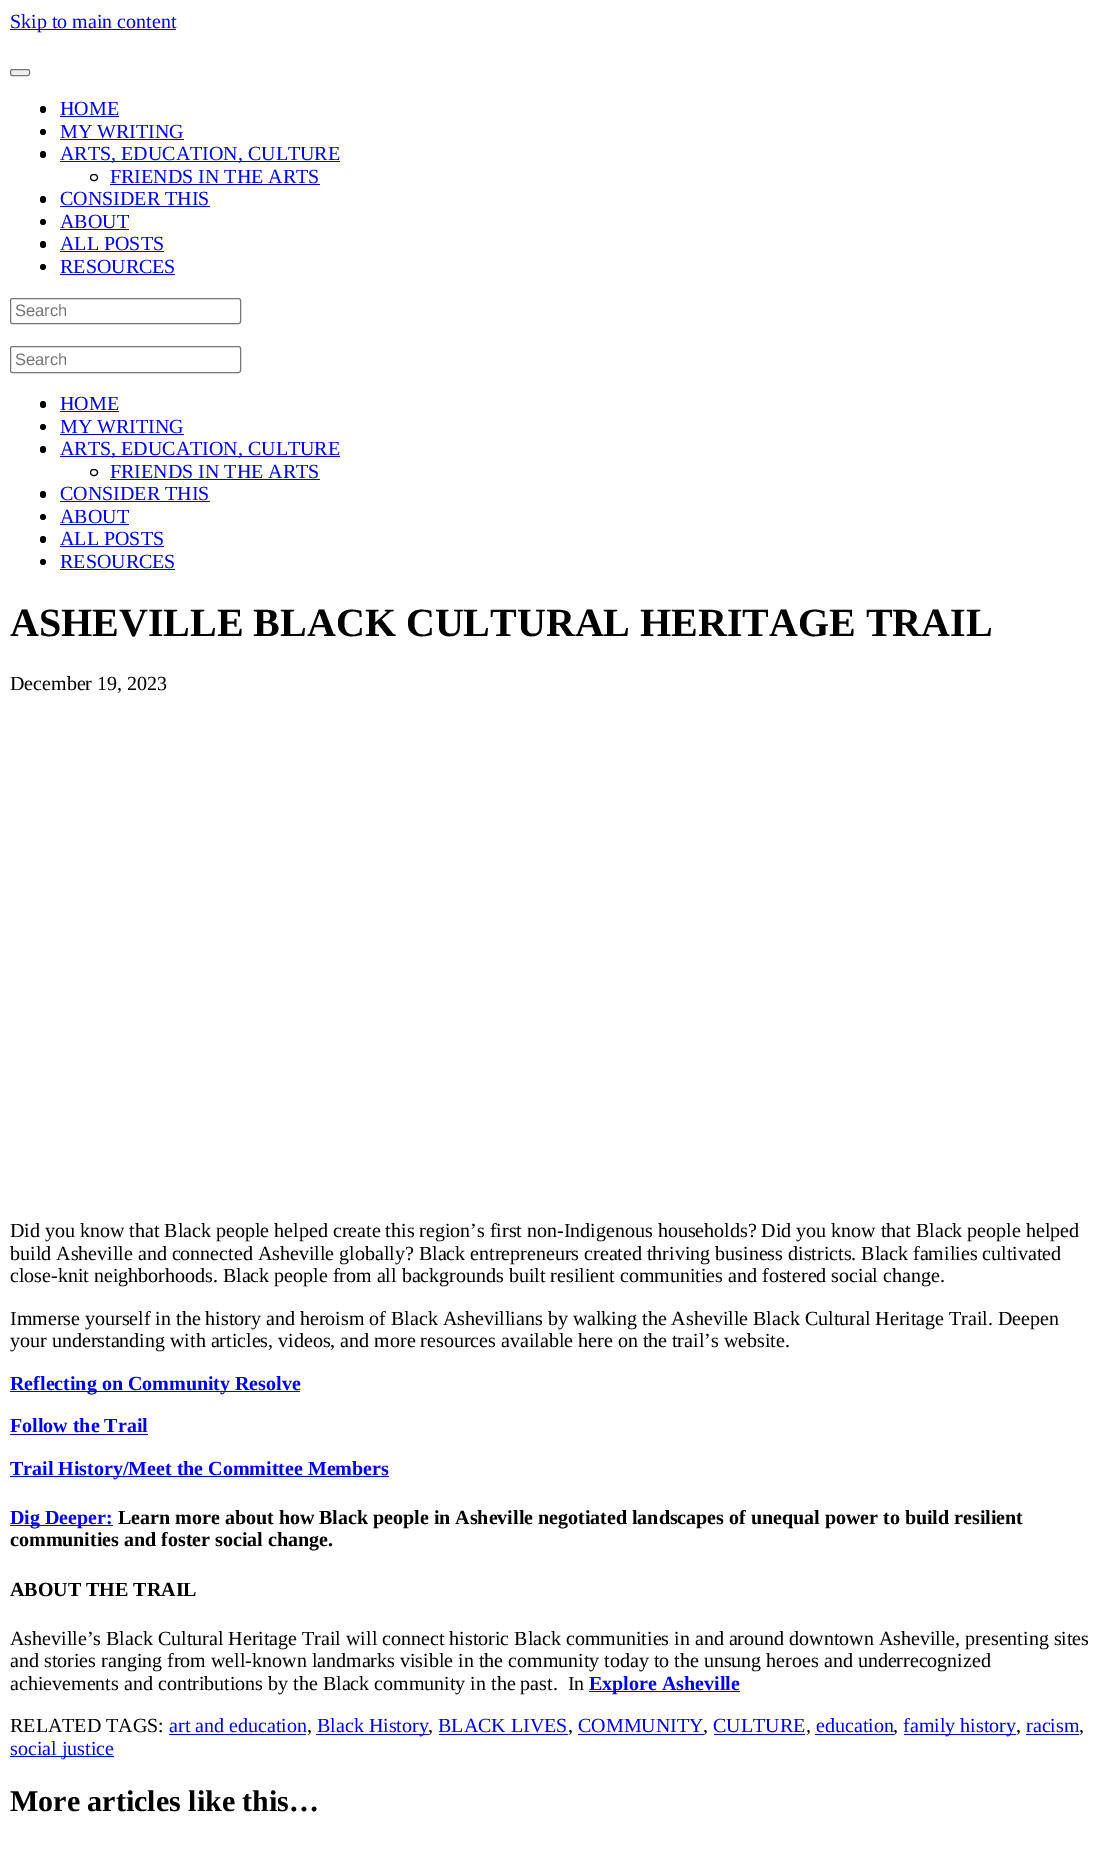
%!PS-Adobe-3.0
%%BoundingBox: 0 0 1099 1876
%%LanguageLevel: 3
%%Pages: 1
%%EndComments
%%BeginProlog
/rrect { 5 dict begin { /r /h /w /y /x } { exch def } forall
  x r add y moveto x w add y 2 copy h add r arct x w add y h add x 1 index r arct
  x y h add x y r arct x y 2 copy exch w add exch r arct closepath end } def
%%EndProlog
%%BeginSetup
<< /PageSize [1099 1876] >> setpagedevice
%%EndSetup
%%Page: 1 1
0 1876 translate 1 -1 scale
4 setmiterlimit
1 setgray
0 0 1099 1876 rectfill
0 0 0.933 setrgbcolor
10 29 166 1 rectfill
0.937 setgray
10.5 69.5 19 6 2 rrect gsave fill grestore
0.463 setgray
stroke
0 setgray
40 106 6 7 3 rrect fill
0 0 0.933 setrgbcolor
60 116 59 1 rectfill
0 setgray
newpath 43 132 3 0 360 arc closepath fill
0 0 0.933 setrgbcolor
60 139 124 1 rectfill
0 setgray
40 151 6 7 3 rrect fill
0 0 0.933 setrgbcolor
60 161 280 1 rectfill
0 setgray
90.5 174.5 7 6 3 rrect stroke
0 0 0.933 setrgbcolor
110 184 210 1 rectfill
0 setgray
40 196 6 7 3 rrect fill
0 0 0.933 setrgbcolor
60 206 150 1 rectfill
0 setgray
newpath 43 222 3 0 360 arc closepath fill
0 0 0.933 setrgbcolor
60 229 69 1 rectfill
0 setgray
40 241 6 7 3 rrect fill
0 0 0.933 setrgbcolor
60 251 104 1 rectfill
0 setgray
newpath 43 267 3 0 360 arc closepath fill
0 0 0.933 setrgbcolor
60 274 115 1 rectfill
0.463 setgray
10.5 298.5 230 25 2 rrect stroke
10.5 346.5 230 26 2 rrect stroke
0 setgray
40 401 6 7 3 rrect fill
0 0 0.933 setrgbcolor
60 411 59 1 rectfill
0 setgray
newpath 43 427 3 0 360 arc closepath fill
0 0 0.933 setrgbcolor
60 434 124 1 rectfill
0 setgray
40 446 6 7 3 rrect fill
0 0 0.933 setrgbcolor
60 456 280 1 rectfill
0 setgray
90.5 469.5 7 6 3 rrect stroke
0 0 0.933 setrgbcolor
110 479 210 1 rectfill
0 setgray
40 491 6 7 3 rrect fill
0 0 0.933 setrgbcolor
60 501 150 1 rectfill
0 setgray
newpath 43 517 3 0 360 arc closepath fill
0 0 0.933 setrgbcolor
60 524 69 1 rectfill
0 setgray
40 536 6 7 3 rrect fill
0 0 0.933 setrgbcolor
60 546 104 1 rectfill
0 setgray
newpath 43 562 3 0 360 arc closepath fill
0 0 0.933 setrgbcolor
60 569 115 1 rectfill
10 1391 290 1 rectfill
10 1434 138 1 rectfill
10 1476 379 1 rectfill
10 1525 103 1 rectfill
589 1691 151 1 rectfill
169 1734 137 1 rectfill
316 1734 113 1 rectfill
439 1734 129 1 rectfill
578 1734 126 1 rectfill
714 1734 91 1 rectfill
815 1734 79 1 rectfill
904 1734 112 1 rectfill
1026 1734 53 1 rectfill
10 1756 104 1 rectfill
/LiberationSerif-Regular [20 0 0 -20 0 0] selectfont
10 28 moveto (Skip to main content) show
60 115 moveto (HOME) show
60 138 moveto (MY WRITING) show
60 160 moveto (ARTS, EDUCATION, CULTURE) show
110 183 moveto (FRIENDS IN THE ARTS) show
60 205 moveto (CONSIDER THIS) show
60 228 moveto (ABOUT) show
60 250 moveto (ALL POSTS) show
60 273 moveto (RESOURCES) show
/LiberationSans-Regular [16.5 0 0 -16.5 0 0] selectfont
0.459 setgray
15 316 moveto (Search) show
15 365 moveto (Search) show
/LiberationSerif-Regular [20 0 0 -20 0 0] selectfont
0 0 0.933 setrgbcolor
60 410 moveto (HOME) show
60 433 moveto (MY WRITING) show
60 455 moveto (ARTS, EDUCATION, CULTURE) show
110 478 moveto (FRIENDS IN THE ARTS) show
60 500 moveto (CONSIDER THIS) show
60 523 moveto (ABOUT) show
60 545 moveto (ALL POSTS) show
60 568 moveto (RESOURCES) show
/LiberationSerif-Bold [40 0 0 -40 0 0] selectfont
0 setgray
10 636 moveto (ASHEVILLE BLACK CULTURAL HERITAGE TRAIL) show
/LiberationSerif-Regular [20 0 0 -20 0 0] selectfont
10 690 moveto (December 19, 2023) show
10 1237 moveto (Did you know that Black people helped create this region’s first non-Indigenous households? Did you know that Black people helped) show
10 1260 moveto (build Asheville and connected Asheville globally? Black entrepreneurs created thriving business districts. Black families cultivated) show
10 1282 moveto (close-knit neighborhoods. Black people from all backgrounds built resilient communities and fostered social change.) show
10 1325 moveto (Immerse yourself in the history and heroism of Black Ashevillians by walking the Asheville Black Cultural Heritage Trail. Deepen) show
10 1347 moveto (your understanding with articles, videos, and more resources available here on the trail’s website.) show
/LiberationSerif-Bold [20 0 0 -20 0 0] selectfont
0 0 0.933 setrgbcolor
10 1390 moveto (Reflecting on Community Resolve) show
10 1432 moveto (Follow the Trail) show
10 1475 moveto (Trail History/Meet the Committee Members) show
10 1524 moveto (Dig Deeper:) show
0 setgray
118 1524 moveto (Learn more about how Black people in Asheville negotiated landscapes of unequal power to build resilient) show
10 1546 moveto (communities and foster social change.) show
10 1596 moveto (ABOUT THE TRAIL) show
/LiberationSerif-Regular [20 0 0 -20 0 0] selectfont
10 1645 moveto (Asheville’s Black Cultural Heritage Trail will connect historic Black communities in and around downtown Asheville, presenting sites) show
10 1667 moveto (and stories ranging from well-known landmarks visible in the community today to the unsung heroes and underrecognized) show
10 1690 moveto (achievements and contributions by the Black community in the past.  In) show
/LiberationSerif-Bold [20 0 0 -20 0 0] selectfont
0 0 0.933 setrgbcolor
589 1690 moveto (Explore Asheville) show
/LiberationSerif-Regular [20 0 0 -20 0 0] selectfont
0 setgray
10 1732 moveto (RELATED TAGS:) show
0 0 0.933 setrgbcolor
169 1732 moveto (art and education) show
0 setgray
307 1732 moveto (,) show
0 0 0.933 setrgbcolor
317 1732 moveto (Black History) show
0 setgray
428 1732 moveto (,) show
0 0 0.933 setrgbcolor
438 1732 moveto (BLACK LIVES) show
0 setgray
568 1732 moveto (,) show
0 0 0.933 setrgbcolor
578 1732 moveto (COMMUNITY) show
0 setgray
703 1732 moveto (,) show
0 0 0.933 setrgbcolor
713 1732 moveto (CULTURE) show
0 setgray
806 1732 moveto (,) show
0 0 0.933 setrgbcolor
816 1732 moveto (education) show
0 setgray
893 1732 moveto (,) show
0 0 0.933 setrgbcolor
903 1732 moveto (family history) show
0 setgray
1016 1732 moveto (,) show
0 0 0.933 setrgbcolor
1026 1732 moveto (racism) show
0 setgray
1079 1732 moveto (,) show
0 0 0.933 setrgbcolor
10 1755 moveto (social justice) show
/LiberationSerif-Bold [30 0 0 -30 0 0] selectfont
0 setgray
10 1811 moveto (More articles like this…) show
showpage
%%EOF
